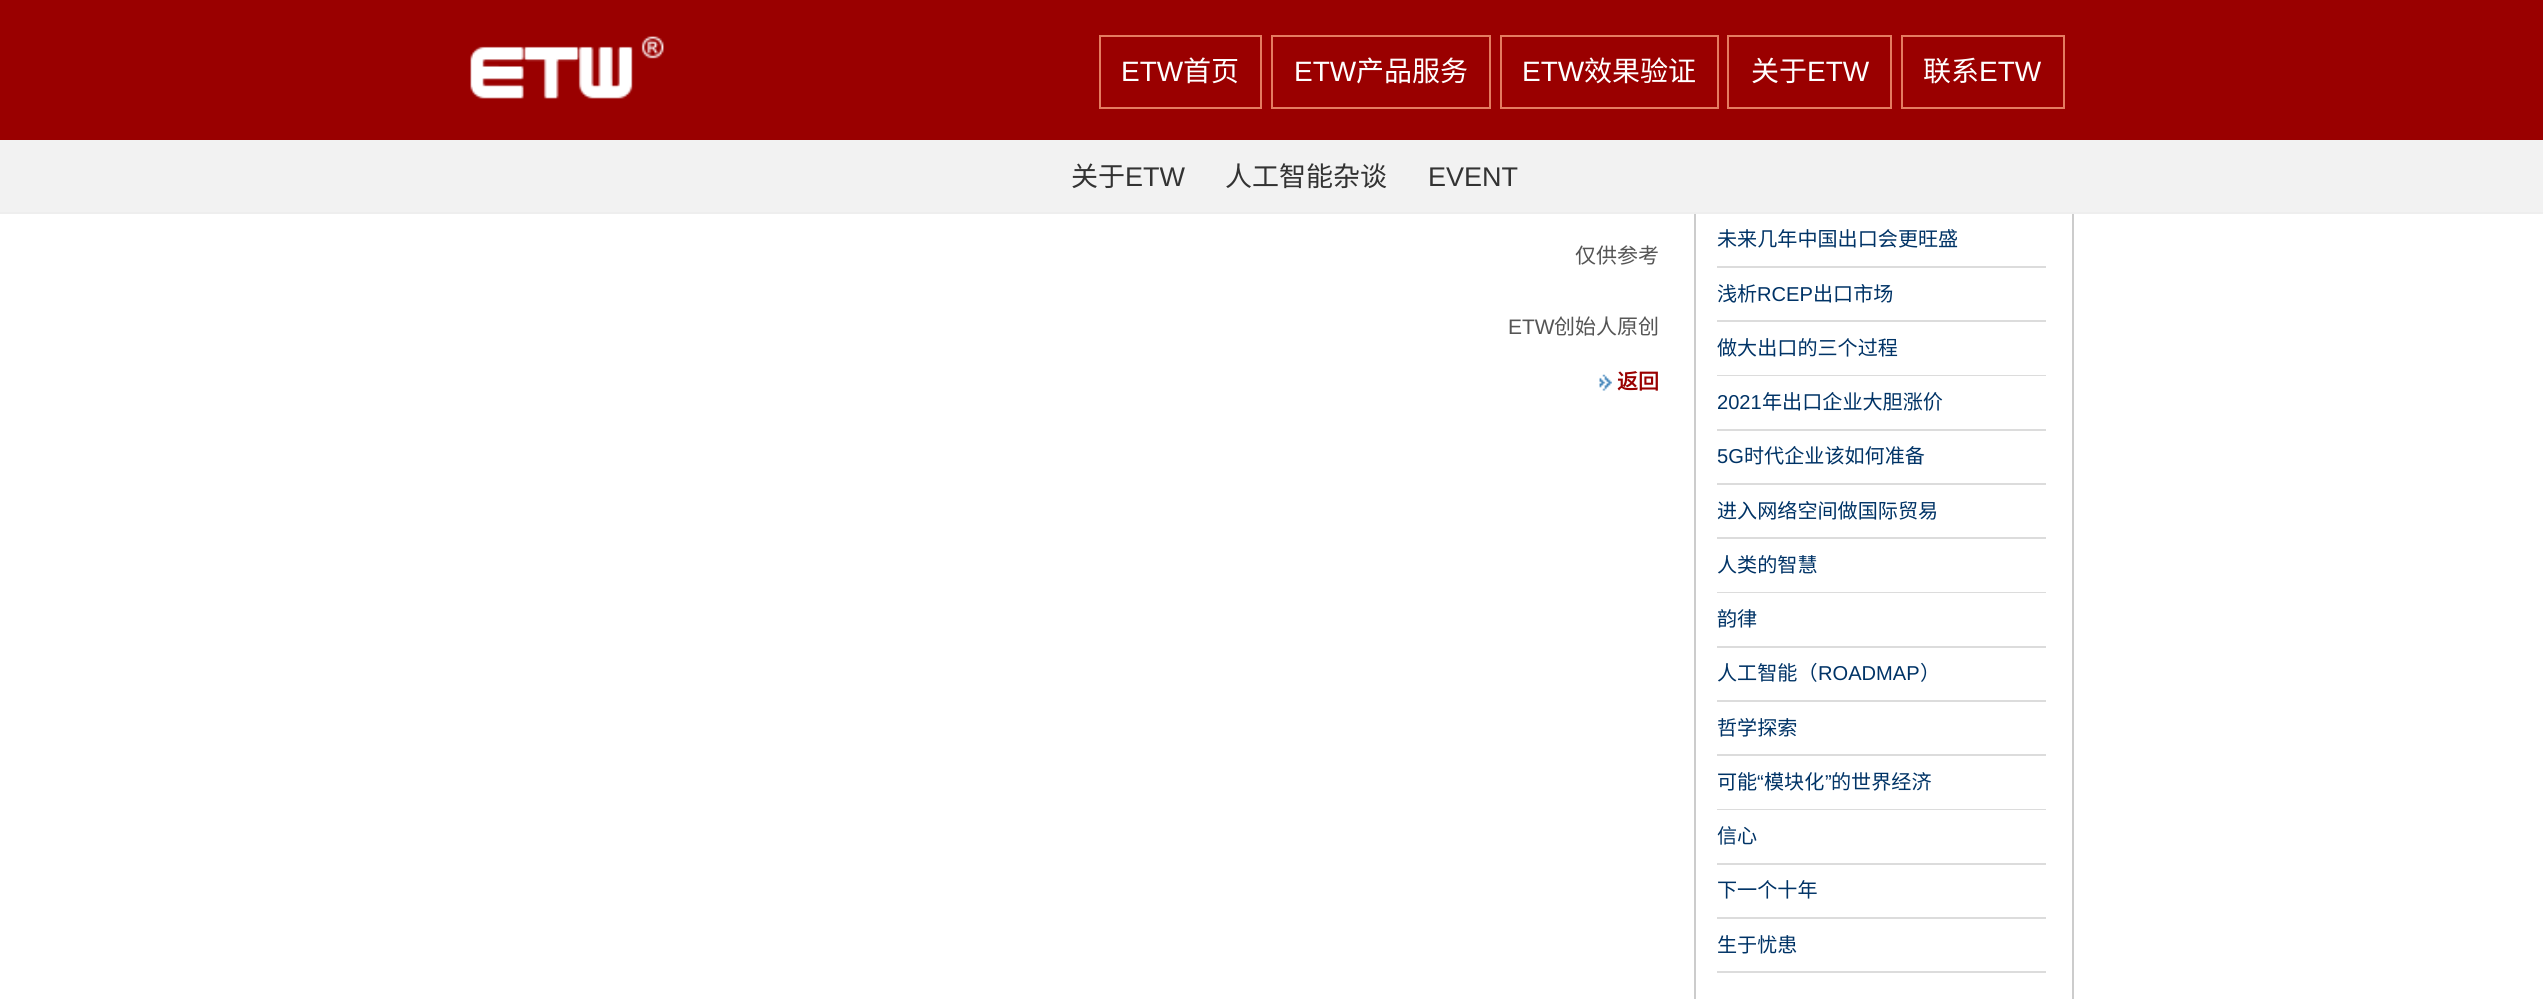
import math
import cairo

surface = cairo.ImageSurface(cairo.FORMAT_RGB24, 2543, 999)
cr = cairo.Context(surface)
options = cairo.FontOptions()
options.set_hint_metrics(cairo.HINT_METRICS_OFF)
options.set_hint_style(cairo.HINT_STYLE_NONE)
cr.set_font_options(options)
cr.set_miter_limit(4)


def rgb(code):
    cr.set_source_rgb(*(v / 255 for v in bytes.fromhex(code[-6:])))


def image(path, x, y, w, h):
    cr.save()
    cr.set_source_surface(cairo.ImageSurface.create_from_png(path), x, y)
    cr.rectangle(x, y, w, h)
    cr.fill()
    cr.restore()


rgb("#ffffff")
cr.paint()
cr.rectangle(1695, -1, 378, 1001)
rgb("#cccccc")
cr.stroke()
rgb("#9a0000")
cr.rectangle(0, 0, 2543, 140)
cr.fill()
image("img/1.png", 470, 36, 194, 63)
cr.rectangle(1100, 36, 161, 72)
rgb("#e47c61")
cr.stroke()
cr.rectangle(1272, 36, 218, 72)
cr.stroke()
cr.rectangle(1501, 36, 217, 72)
cr.stroke()
cr.rectangle(1728, 36, 163, 72)
cr.stroke()
cr.rectangle(1902, 36, 162, 72)
cr.stroke()
rgb("#f2f2f2")
cr.rectangle(0, 140, 2543, 72)
cr.fill()
rgb("#eeeeee")
cr.rectangle(0, 212, 2543, 2)
cr.fill()
image("img/2.png", 1599, 374, 13, 17)
for x, y, w, h, color in [
    (1717, 266, 329, 2, "#dcdcdc"),
    (1717, 320, 329, 2, "#dcdcdc"),
    (1717, 375, 329, 1, "#dcdcdc"),
    (1717, 429, 329, 2, "#dcdcdc"),
    (1717, 483, 329, 2, "#dcdcdc"),
    (1717, 537, 329, 2, "#dcdcdc"),
    (1717, 592, 329, 1, "#dcdcdc"),
    (1717, 646, 329, 2, "#dcdcdc"),
    (1717, 700, 329, 2, "#dcdcdc"),
    (1717, 754, 329, 2, "#dcdcdc"),
    (1717, 809, 329, 1, "#dcdcdc"),
    (1717, 863, 329, 2, "#dcdcdc"),
    (1717, 917, 329, 2, "#dcdcdc"),
    (1717, 971, 329, 2, "#dcdcdc"),
]:
    rgb(color)
    cr.rectangle(x, y, w, h)
    cr.fill()
cr.select_font_face("Liberation Sans")
cr.set_font_size(28)
rgb("#ffffff")
cr.move_to(1121, 81)
cr.show_text("ETW")
cr.select_font_face("Noto Sans CJK SC")
cr.move_to(1183, 81)
cr.show_text("首页")
cr.select_font_face("Liberation Sans")
cr.move_to(1294, 81)
cr.show_text("ETW")
cr.select_font_face("Noto Sans CJK SC")
cr.move_to(1356, 81)
cr.show_text("产品服务")
cr.select_font_face("Liberation Sans")
cr.move_to(1522, 81)
cr.show_text("ETW")
cr.select_font_face("Noto Sans CJK SC")
cr.move_to(1584, 81)
cr.show_text("效果验证")
cr.move_to(1751, 81)
cr.show_text("关于")
cr.select_font_face("Liberation Sans")
cr.move_to(1807, 81)
cr.show_text("ETW")
cr.select_font_face("Noto Sans CJK SC")
cr.move_to(1923, 81)
cr.show_text("联系")
cr.select_font_face("Liberation Sans")
cr.move_to(1979, 81)
cr.show_text("ETW")
cr.select_font_face("Noto Sans CJK SC")
cr.set_font_size(27)
rgb("#333333")
cr.move_to(1071, 186)
cr.show_text("关于")
cr.select_font_face("Liberation Sans")
cr.move_to(1125, 186)
cr.show_text("ETW")
cr.select_font_face("Noto Sans CJK SC")
cr.move_to(1225, 186)
cr.show_text("人工智能杂谈")
cr.select_font_face("Liberation Sans")
cr.move_to(1428, 186)
cr.show_text("EVENT")
cr.select_font_face("Noto Sans CJK SC")
cr.set_font_size(21)
rgb("#555555")
cr.move_to(1575, 263)
cr.show_text("仅供参考")
cr.select_font_face("Liberation Sans")
cr.move_to(1508, 334)
cr.show_text("ETW")
cr.select_font_face("Noto Sans CJK SC")
cr.move_to(1554, 334)
cr.show_text("创始人原创")
cr.select_font_face("Noto Sans CJK SC", cairo.FONT_SLANT_NORMAL, cairo.FONT_WEIGHT_BOLD)
rgb("#9a0000")
cr.move_to(1617, 389)
cr.show_text("返回")
cr.select_font_face("Noto Sans CJK SC")
cr.set_font_size(20.1)
rgb("#003366")
cr.move_to(1717, 246)
cr.show_text("未来几年中国出口会更旺盛")
cr.move_to(1717, 301)
cr.show_text("浅析")
cr.select_font_face("Liberation Sans")
cr.move_to(1757, 301)
cr.show_text("RCEP")
cr.select_font_face("Noto Sans CJK SC")
cr.move_to(1813, 301)
cr.show_text("出口市场")
cr.move_to(1717, 355)
cr.show_text("做大出口的三个过程")
cr.select_font_face("Liberation Sans")
cr.move_to(1717, 409)
cr.show_text("2021")
cr.select_font_face("Noto Sans CJK SC")
cr.move_to(1762, 409)
cr.show_text("年出口企业大胆涨价")
cr.select_font_face("Liberation Sans")
cr.move_to(1717, 463)
cr.show_text("5G")
cr.select_font_face("Noto Sans CJK SC")
for x, y, s in [
    (1744, 463, "时代企业该如何准备"),
    (1717, 518, "进入网络空间做国际贸易"),
    (1717, 572, "人类的智慧"),
    (1717, 626, "韵律"),
    (1717, 680, "人工智能（"),
]:
    cr.move_to(x, y)
    cr.show_text(s)
cr.select_font_face("Liberation Sans")
cr.move_to(1818, 680)
cr.show_text("ROADMAP")
cr.select_font_face("Noto Sans CJK SC")
for x, y, s in [
    (1920, 680, "）"),
    (1717, 735, "哲学探索"),
    (1717, 789, "可能"),
]:
    cr.move_to(x, y)
    cr.show_text(s)
cr.select_font_face("Liberation Sans")
cr.move_to(1757, 789)
cr.show_text("“")
cr.select_font_face("Noto Sans CJK SC")
cr.move_to(1764, 789)
cr.show_text("模块化")
cr.select_font_face("Liberation Sans")
cr.move_to(1825, 789)
cr.show_text("”")
cr.select_font_face("Noto Sans CJK SC")
for x, y, s in [
    (1831, 789, "的世界经济"),
    (1717, 843, "信心"),
    (1717, 897, "下一个十年"),
    (1717, 952, "生于忧患"),
]:
    cr.move_to(x, y)
    cr.show_text(s)
surface.write_to_png("page.png")
